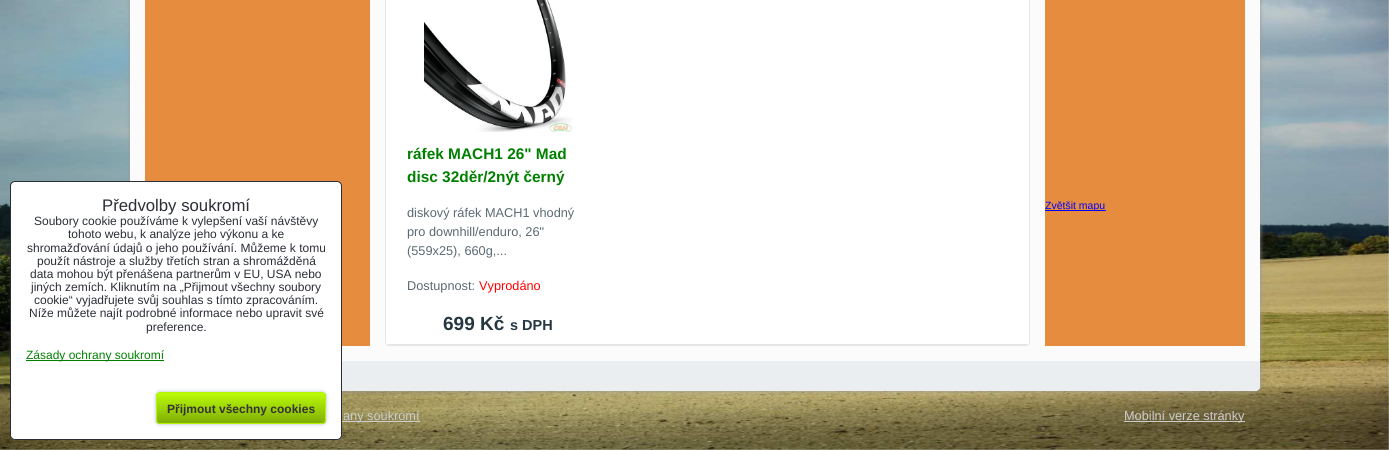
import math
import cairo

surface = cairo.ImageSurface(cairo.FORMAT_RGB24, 1389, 450)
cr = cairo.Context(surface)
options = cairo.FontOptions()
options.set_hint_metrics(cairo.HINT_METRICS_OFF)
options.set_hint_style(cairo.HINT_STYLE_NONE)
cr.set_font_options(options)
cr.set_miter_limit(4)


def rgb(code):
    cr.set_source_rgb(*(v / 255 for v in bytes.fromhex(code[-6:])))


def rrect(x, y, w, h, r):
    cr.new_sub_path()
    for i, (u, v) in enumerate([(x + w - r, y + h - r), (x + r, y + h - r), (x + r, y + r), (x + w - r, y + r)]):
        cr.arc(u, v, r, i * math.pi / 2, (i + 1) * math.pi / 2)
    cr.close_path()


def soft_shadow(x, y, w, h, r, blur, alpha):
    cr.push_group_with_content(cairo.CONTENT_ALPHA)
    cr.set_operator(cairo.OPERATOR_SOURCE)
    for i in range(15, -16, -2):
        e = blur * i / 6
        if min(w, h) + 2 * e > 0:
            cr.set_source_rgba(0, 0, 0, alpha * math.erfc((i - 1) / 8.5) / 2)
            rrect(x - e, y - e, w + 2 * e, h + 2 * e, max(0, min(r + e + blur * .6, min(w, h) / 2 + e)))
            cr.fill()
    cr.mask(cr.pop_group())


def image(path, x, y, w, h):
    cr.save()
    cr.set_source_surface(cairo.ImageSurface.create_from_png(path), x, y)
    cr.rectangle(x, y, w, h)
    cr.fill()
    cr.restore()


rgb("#ffffff")
cr.paint()
image("img/1.png", 0, 0, 1389, 450)
rgb("#999999")
soft_shadow(130, -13, 1130, 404, 5, 2.5, 1)
rgb("#fbfbfb")
rrect(130, -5, 1130, 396, 5)
cr.fill()
rgb("#e68c3e")
cr.rectangle(145, 0, 225, 346)
cr.fill()
rgb("#eaeef0")
cr.new_path()
cr.move_to(130, 361)
cr.line_to(1260, 361)
cr.line_to(1260, 386)
cr.curve_to(1260, 389, 1258, 391, 1255, 391)
cr.line_to(135, 391)
cr.curve_to(132, 391, 130, 389, 130, 386)
cr.close_path()
cr.fill()
rgb("#ffffff")
rrect(10.5, 181.5, 331, 258, 4.5)
cr.fill_preserve()
rgb("#2b2e38")
cr.set_line_width(1)
cr.stroke()
rgb("#008000")
cr.rectangle(26, 360, 138, 1)
cr.fill()
rgb("#b6bfc3")
soft_shadow(156, 392, 170, 32, 4, 2, 1)
image("img/2.png", 156, 393, 170, 31)
rrect(156.5, 392.5, 169, 31, 3.5)
rgb("#b4f308")
cr.stroke()
rgb("#ffffff")
rrect(385.5, -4.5, 644, 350, 3.5)
cr.fill_preserve()
rgb("#e3e5e6")
cr.stroke()
cr.rectangle(388, 344, 639, 1)
cr.fill()
image("img/3.png", 424, 0, 148, 132)
for x, y, w, h, color in [
    (1045, 0, 200, 346, "#e68c3e"),
    (1045, 210, 61, 1, "#0000ff"),
    (342, 421, 78, 1, "#cccccc"),
    (1124, 421, 121, 1, "#cccccc"),
]:
    rgb(color)
    cr.rectangle(x, y, w, h)
    cr.fill()
cr.select_font_face("Liberation Sans")
cr.set_font_size(16.75)
rgb("#2b2e38")
cr.move_to(102, 211)
cr.show_text("Předvolby soukromí")
cr.set_font_size(12)
for x, y, s in [
    (34, 225, "Soubory cookie používáme k vylepšení vaší návštěvy"),
    (68, 238, "tohoto webu, k analýze jeho výkonu a ke"),
    (27, 252, "shromažďování údajů o jeho používání. Můžeme k tomu"),
    (37, 265, "použít nástroje a služby třetích stran a shromážděná"),
    (30, 278, "data mohou být přenášena partnerům v EU, USA nebo"),
    (31, 291, "jiných zemích. Kliknutím na „Přijmout všechny soubory"),
    (34, 304, "cookie“ vyjadřujete svůj souhlas s tímto zpracováním."),
    (29, 317, "Níže můžete najít podrobné informace nebo upravit své"),
    (146, 331, "preference."),
]:
    cr.move_to(x, y)
    cr.show_text(s)
rgb("#008000")
cr.move_to(26, 359)
cr.show_text("Zásady ochrany soukromí")
cr.select_font_face("Liberation Sans", cairo.FONT_SLANT_NORMAL, cairo.FONT_WEIGHT_BOLD)
rgb("#333333")
cr.move_to(167, 413)
cr.show_text("Přijmout všechny cookies")
cr.set_font_size(15.4)
rgb("#008000")
cr.move_to(407, 159)
cr.show_text("ráfek MACH1 26\" Mad")
cr.move_to(407, 182)
cr.show_text("disc 32děr/2nýt černý")
cr.select_font_face("Liberation Sans")
cr.set_font_size(12.75)
rgb("#5a6a72")
for x, y, s in [
    (407, 217, "diskový ráfek MACH1 vhodný"),
    (407, 236, "pro downhill/enduro, 26\""),
    (407, 255, "(559x25), 660g,..."),
    (407, 290, "Dostupnost:"),
]:
    cr.move_to(x, y)
    cr.show_text(s)
rgb("#ff0000")
cr.move_to(479, 290)
cr.show_text("Vyprodáno")
cr.select_font_face("Liberation Sans", cairo.FONT_SLANT_NORMAL, cairo.FONT_WEIGHT_BOLD)
cr.set_font_size(19)
rgb("#253741")
cr.move_to(443, 330)
cr.show_text("699 Kč")
cr.set_font_size(14.5)
cr.move_to(510, 330)
cr.show_text("s DPH")
cr.select_font_face("Liberation Sans")
cr.set_font_size(10.5)
rgb("#0000ff")
cr.move_to(1045, 209)
cr.show_text("Zvětšit mapu")
cr.set_font_size(12.75)
rgb("#cccccc")
cr.move_to(343, 420)
cr.show_text("any soukromí")
cr.move_to(1124, 420)
cr.show_text("Mobilní verze stránky")
surface.write_to_png("page.png")
